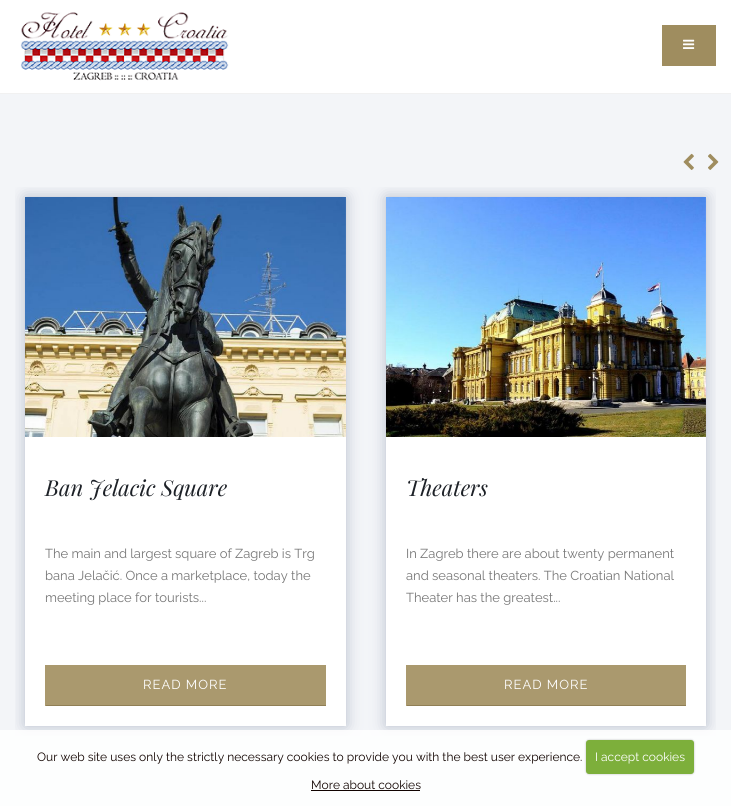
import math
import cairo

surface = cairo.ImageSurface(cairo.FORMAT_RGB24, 731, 806)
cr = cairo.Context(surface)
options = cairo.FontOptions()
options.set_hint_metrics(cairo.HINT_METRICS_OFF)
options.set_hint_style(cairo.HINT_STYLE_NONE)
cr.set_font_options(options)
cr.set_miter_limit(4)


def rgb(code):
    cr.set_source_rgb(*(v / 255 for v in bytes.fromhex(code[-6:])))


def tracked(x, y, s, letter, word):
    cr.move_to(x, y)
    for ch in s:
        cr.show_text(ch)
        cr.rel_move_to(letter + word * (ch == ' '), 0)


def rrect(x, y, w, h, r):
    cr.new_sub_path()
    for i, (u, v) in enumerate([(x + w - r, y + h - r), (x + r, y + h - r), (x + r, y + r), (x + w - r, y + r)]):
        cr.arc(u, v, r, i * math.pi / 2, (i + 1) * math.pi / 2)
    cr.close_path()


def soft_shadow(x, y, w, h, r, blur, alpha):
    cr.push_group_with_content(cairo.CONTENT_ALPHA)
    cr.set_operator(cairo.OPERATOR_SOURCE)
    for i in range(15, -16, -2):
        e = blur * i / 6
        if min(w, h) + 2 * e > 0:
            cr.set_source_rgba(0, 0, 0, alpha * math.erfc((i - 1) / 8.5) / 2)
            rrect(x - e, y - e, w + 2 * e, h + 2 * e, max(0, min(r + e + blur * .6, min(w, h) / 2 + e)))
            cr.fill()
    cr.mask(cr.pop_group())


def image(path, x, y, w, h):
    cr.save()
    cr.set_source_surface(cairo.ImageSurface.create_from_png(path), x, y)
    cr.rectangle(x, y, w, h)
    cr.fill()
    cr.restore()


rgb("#f3f5f8")
cr.paint()
rgb("#ffffff")
cr.rectangle(0, 0, 731, 93)
cr.fill()
image("img/1.png", 20, 12, 209, 69)
rgb("#9f8d5f")
cr.rectangle(662, 25, 54, 41)
cr.fill()
image("img/2.png", 683, 39, 12, 10)
rgb("#f1f1f1")
cr.rectangle(0, 93, 731, 1)
cr.fill()
image("img/3.png", 683, 153, 11, 17)
image("img/4.png", 708, 153, 11, 17)
cr.save()
cr.rectangle(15, 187, 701, 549)
cr.clip()
rgb("#a8b0c1")
soft_shadow(25, 197, 321, 529, 0, 7.5, 0.8)
cr.restore()
rgb("#ffffff")
cr.rectangle(25, 197, 321, 529)
cr.fill()
image("img/5.png", 25, 197, 321, 240)
for x, y, w, h, color in [
    (46, 665, 280, 40, "#aa996e"),
    (45, 705, 281, 1, "#907f55"),
    (45, 665, 1, 41, "#aa996e"),
]:
    rgb(color)
    cr.rectangle(x, y, w, h)
    cr.fill()
cr.save()
cr.rectangle(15, 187, 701, 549)
cr.clip()
rgb("#a8b0c1")
soft_shadow(386, 197, 320, 529, 0, 7.5, 0.8)
cr.restore()
rgb("#ffffff")
cr.rectangle(386, 197, 320, 529)
cr.fill()
image("img/6.png", 386, 197, 320, 240)
rgb("#aa996e")
cr.rectangle(407, 665, 279, 40)
cr.fill()
rgb("#907f55")
cr.rectangle(406, 705, 280, 1)
cr.fill()
rgb("#aa996e")
cr.rectangle(406, 665, 1, 41)
cr.fill()
cr.set_source_rgba(1, 1, 1, 0.85)
cr.rectangle(0, 730, 731, 76)
cr.fill()
rgb("#000000")
soft_shadow(586, 740, 108, 34, 3, 1, 0.25)
rgb("#7daf3b")
rrect(586, 740, 108, 34, 3)
cr.fill()
rgb("#110300")
cr.rectangle(311, 790, 109, 1)
cr.fill()
cr.select_font_face("Playfair Display", cairo.FONT_SLANT_ITALIC)
cr.set_font_size(22)
rgb("#1d2127")
cr.move_to(45, 496)
cr.show_text("Ban Jelacic Square")
cr.select_font_face("Raleway Thin")
cr.set_font_size(13)
rgb("#777777")
for x, y, s in [
    (45, 558, "The main and largest square of Zagreb is Trg"),
    (45, 580, "bana Jelačić. Once a marketplace, today the"),
    (45, 602, "meeting place for tourists..."),
]:
    cr.move_to(x, y)
    cr.show_text(s)
rgb("#ffffff")
tracked(143, 689, "READ MORE", 1, 0)
cr.select_font_face("Playfair Display", cairo.FONT_SLANT_ITALIC)
cr.set_font_size(22)
rgb("#1d2127")
cr.move_to(406, 496)
cr.show_text("Theaters")
cr.select_font_face("Raleway Thin")
cr.set_font_size(13)
rgb("#777777")
for x, y, s in [
    (406, 558, "In Zagreb there are about twenty permanent"),
    (406, 580, "and seasonal theaters. The Croatian National"),
    (406, 602, "Theater has the greatest..."),
]:
    cr.move_to(x, y)
    cr.show_text(s)
rgb("#ffffff")
tracked(504, 689, "READ MORE", 1, 0)
cr.set_font_size(12)
rgb("#110300")
cr.move_to(37, 761)
cr.show_text("Our web site uses only the strictly necessary cookies to provide you with the best user experience.")
rgb("#ffffff")
cr.move_to(595, 761)
cr.show_text("I accept cookies")
rgb("#110300")
cr.move_to(311, 789)
cr.show_text("More about cookies")
surface.write_to_png("page.png")
